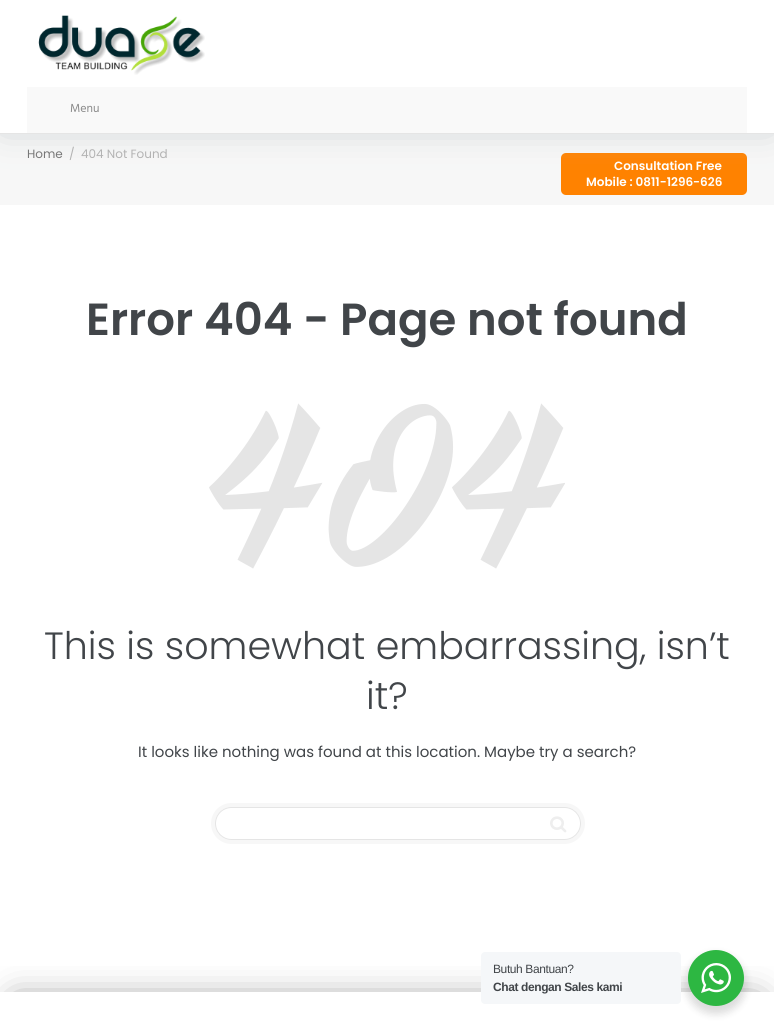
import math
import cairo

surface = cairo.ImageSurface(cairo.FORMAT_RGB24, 774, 1036)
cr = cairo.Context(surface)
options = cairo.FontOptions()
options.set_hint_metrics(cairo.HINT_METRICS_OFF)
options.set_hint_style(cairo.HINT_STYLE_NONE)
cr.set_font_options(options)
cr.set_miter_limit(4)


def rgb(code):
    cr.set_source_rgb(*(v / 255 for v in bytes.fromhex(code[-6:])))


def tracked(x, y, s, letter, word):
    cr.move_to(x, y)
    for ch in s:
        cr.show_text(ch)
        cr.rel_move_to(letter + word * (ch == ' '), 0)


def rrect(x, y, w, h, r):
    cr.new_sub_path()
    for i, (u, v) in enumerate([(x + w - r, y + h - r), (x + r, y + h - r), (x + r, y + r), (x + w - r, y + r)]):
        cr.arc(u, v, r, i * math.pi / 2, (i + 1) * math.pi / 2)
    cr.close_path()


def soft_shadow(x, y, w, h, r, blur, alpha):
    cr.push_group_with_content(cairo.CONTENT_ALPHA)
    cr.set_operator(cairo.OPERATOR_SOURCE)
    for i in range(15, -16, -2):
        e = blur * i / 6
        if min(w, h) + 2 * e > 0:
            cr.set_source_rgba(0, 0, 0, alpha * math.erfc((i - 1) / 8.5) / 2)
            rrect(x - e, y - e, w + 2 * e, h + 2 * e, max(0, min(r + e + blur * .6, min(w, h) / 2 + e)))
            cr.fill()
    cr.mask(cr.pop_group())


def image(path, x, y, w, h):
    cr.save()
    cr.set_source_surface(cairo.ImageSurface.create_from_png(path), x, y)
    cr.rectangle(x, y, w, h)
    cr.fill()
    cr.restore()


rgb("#ffffff")
cr.paint()
rgb("#f7f7f7")
cr.rectangle(0, 134, 774, 71)
cr.fill()
rgb("#ff8200")
rrect(561, 153, 186, 42, 5)
cr.fill()
rgb("#bdc3c7")
soft_shadow(4, -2, 766, 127, 0, 18, 1)
rgb("#ffffff")
cr.rectangle(0, 0, 774, 133)
cr.fill()
rgb("#e5e5e5")
cr.rectangle(0, 133, 774, 1)
cr.fill()
image("img/1.png", 38, 15, 167, 60)
rgb("#f9f9f9")
cr.rectangle(27, 87, 720, 46)
cr.fill()
image("img/2.png", 209, 403, 356, 166)
rrect(213, 805, 370, 37, 18.5)
rgb("#f7f7f7")
cr.set_line_width(4)
cr.stroke()
rrect(215.5, 807.5, 365, 32, 16)
rgb("#e5e5e5")
cr.set_line_width(1)
cr.stroke()
image("img/3.png", 550, 816, 17, 17)
cr.save()
cr.rectangle(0, 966, 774, 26)
cr.clip()
rgb("#777777")
soft_shadow(16, 1003, 742, 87, 0, 18, 1)
cr.restore()
rgb("#000000")
soft_shadow(686, 954, 60, 60, 30, 4, 0.14)
rgb("#f5f7f9")
rrect(481, 952, 200, 52, 4)
cr.fill()
rgb("#2db742")
cr.arc(716, 978, 28, 0, 2 * math.pi)
cr.fill()
image("img/4.png", 701, 963, 30, 30)
cr.select_font_face("Hind")
cr.set_font_size(12)
rgb("#888888")
cr.move_to(70, 112)
cr.show_text("Menu")
cr.select_font_face("Poppins")
rgb("#777777")
cr.move_to(27, 158)
cr.show_text("Home")
rgb("#b3b3b3")
cr.move_to(69, 158)
cr.show_text("/")
cr.move_to(81, 158)
cr.show_text("404 Not Found")
cr.select_font_face("Poppins SemiBold")
rgb("#ffffff")
cr.move_to(614, 170)
cr.show_text("Consultation Free")
cr.move_to(586, 186)
cr.show_text("Mobile : 0811-1296-626")
cr.set_font_size(45)
rgb("#414549")
cr.move_to(86, 335)
cr.show_text("Error 404 - Page not found")
cr.select_font_face("Poppins Light")
cr.set_font_size(38)
cr.move_to(44, 659)
cr.show_text("This is somewhat embarrassing, isn’t")
cr.move_to(366, 709)
cr.show_text("it?")
cr.select_font_face("Poppins")
cr.set_font_size(15)
cr.move_to(138, 757)
cr.show_text("It looks like nothing was found at this location. Maybe try a search?")
cr.select_font_face("Liberation Sans")
cr.set_font_size(12)
tracked(493, 973, "Butuh Bantuan?", -0.4, 0)
cr.select_font_face("Liberation Sans", cairo.FONT_SLANT_NORMAL, cairo.FONT_WEIGHT_BOLD)
tracked(493, 991, "Chat dengan Sales kami", -0.4, 0)
surface.write_to_png("page.png")
